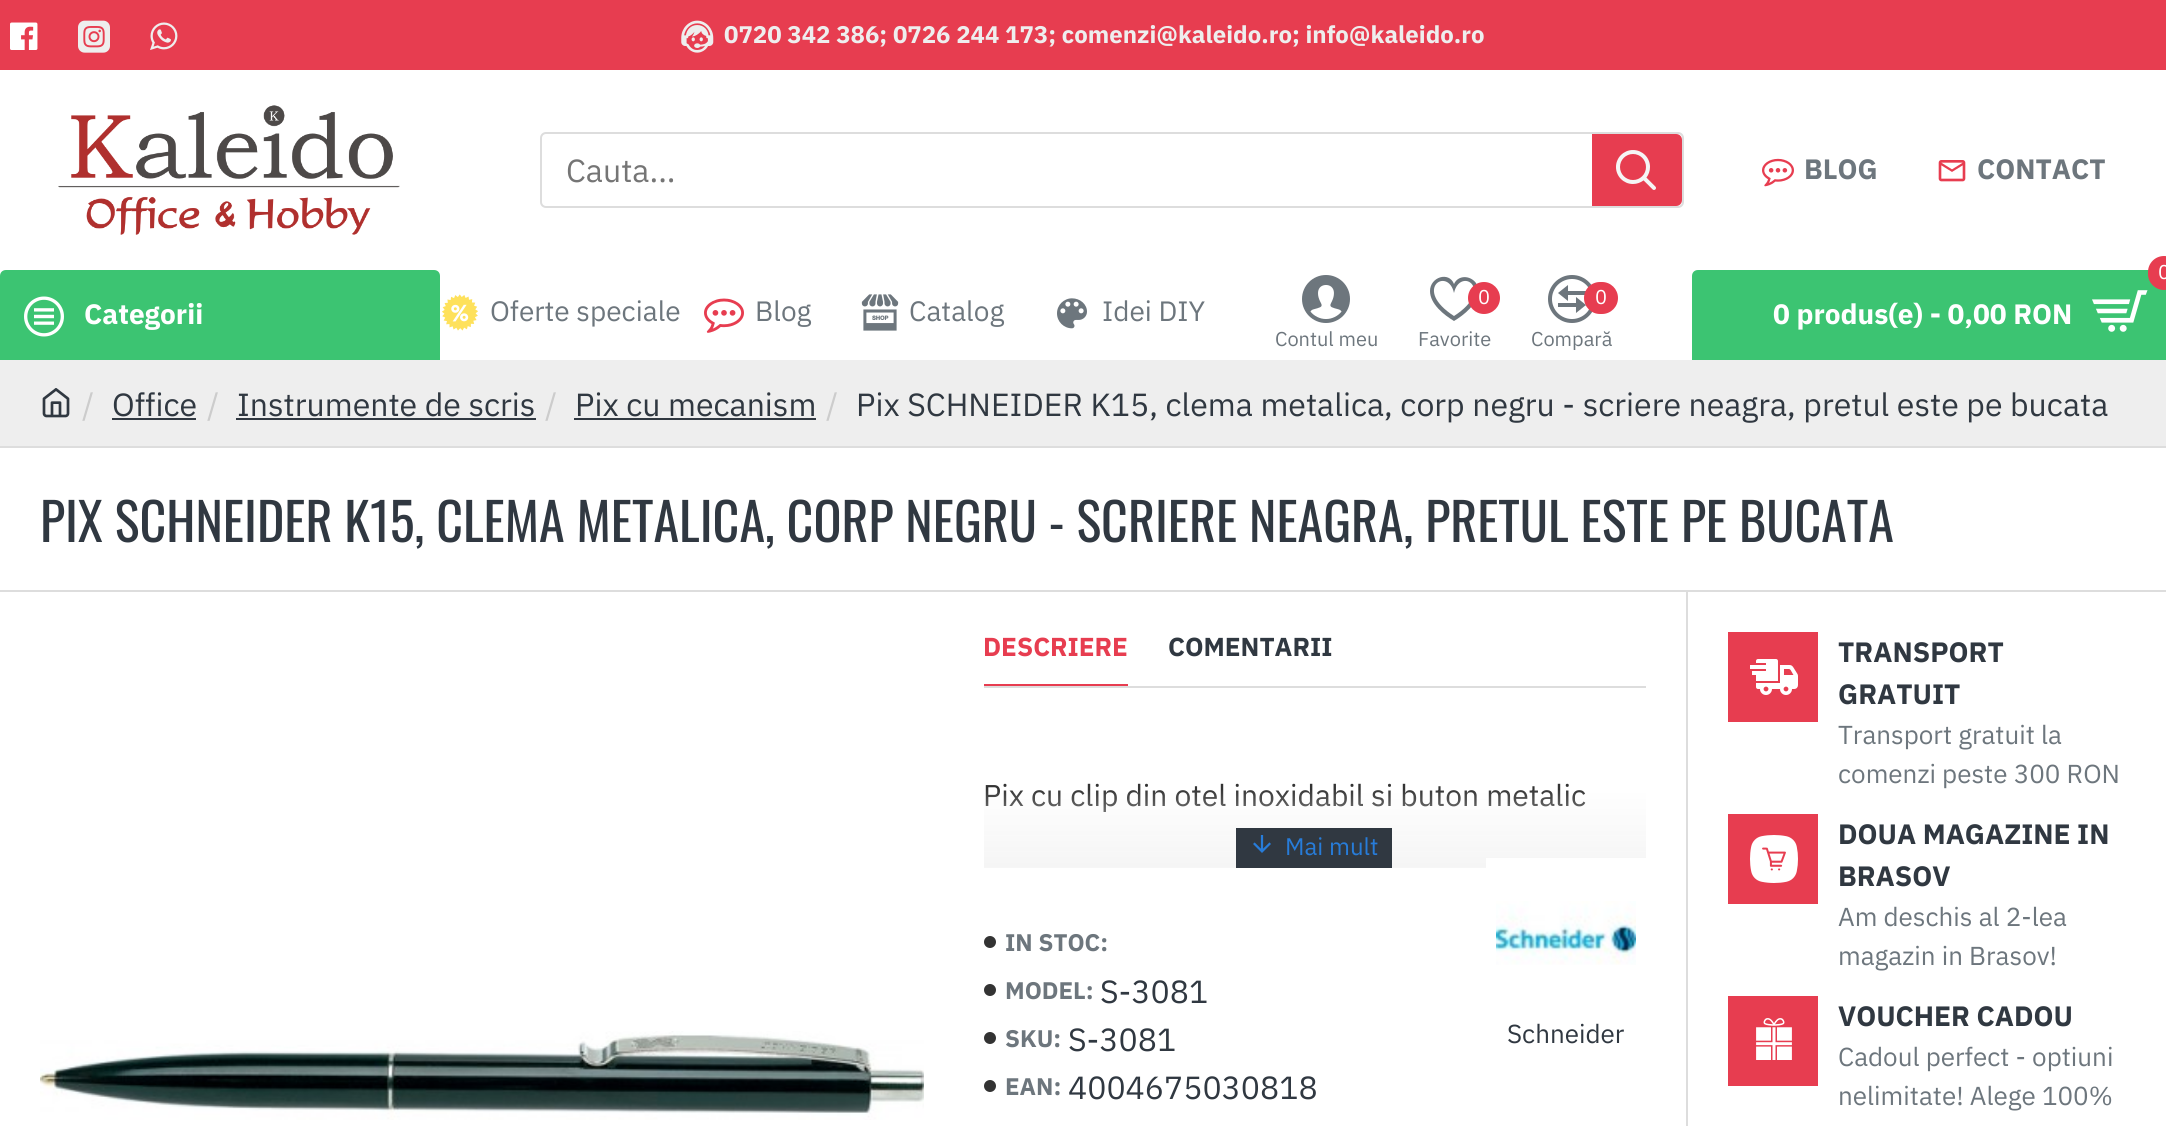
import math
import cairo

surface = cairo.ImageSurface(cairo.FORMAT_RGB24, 2166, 1126)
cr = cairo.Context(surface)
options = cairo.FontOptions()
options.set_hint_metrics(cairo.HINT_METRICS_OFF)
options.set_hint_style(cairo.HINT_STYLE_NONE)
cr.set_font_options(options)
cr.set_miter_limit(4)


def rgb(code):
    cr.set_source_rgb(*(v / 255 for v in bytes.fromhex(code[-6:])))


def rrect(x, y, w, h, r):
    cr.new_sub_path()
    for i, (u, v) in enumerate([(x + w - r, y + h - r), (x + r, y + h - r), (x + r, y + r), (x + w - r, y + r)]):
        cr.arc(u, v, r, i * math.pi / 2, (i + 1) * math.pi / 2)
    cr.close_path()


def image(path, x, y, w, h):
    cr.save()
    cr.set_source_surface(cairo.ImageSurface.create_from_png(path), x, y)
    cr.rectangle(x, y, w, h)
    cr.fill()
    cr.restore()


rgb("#ffffff")
cr.paint()
rgb("#e73d50")
cr.rectangle(0, 0, 2166, 70)
cr.fill()
image("img/1.png", 10, 22, 28, 28)
image("img/2.png", 78, 20, 32, 33)
image("img/3.png", 150, 22, 28, 28)
image("img/4.png", 681, 20, 33, 33)
image("img/5.png", 58, 105, 342, 130)
rrect(541, 133, 1142, 74, 5)
rgb("#dddddd")
cr.stroke()
rgb("#e73d50")
cr.new_path()
cr.move_to(1592, 134)
cr.line_to(1676, 134)
cr.curve_to(1679.5, 134, 1682, 136.5, 1682, 140)
cr.line_to(1682, 200)
cr.curve_to(1682, 203.5, 1679.5, 206, 1676, 206)
cr.line_to(1592, 206)
cr.close_path()
cr.fill()
image("img/6.png", 1616, 150, 40, 40)
image("img/7.png", 1762, 158, 32, 29)
image("img/8.png", 1938, 160, 28, 22)
rgb("#3cc472")
cr.new_path()
cr.move_to(6, 270)
cr.line_to(434, 270)
cr.curve_to(437.5, 270, 440, 272.5, 440, 276)
cr.line_to(440, 360)
cr.line_to(0, 360)
cr.line_to(0, 276)
cr.curve_to(0, 272.5, 2.5, 270, 6, 270)
cr.close_path()
cr.fill()
image("img/9.png", 24, 296, 40, 41)
image("img/10.png", 442, 294, 36, 37)
image("img/11.png", 704, 298, 40, 35)
image("img/12.png", 861, 294, 38, 37)
image("img/13.png", 1057, 298, 30, 31)
image("img/14.png", 1302, 275, 48, 48)
rgb("#6d767d")
cr.new_path()
cr.move_to(1454, 293)
cr.curve_to(1460, 266, 1496, 289, 1454, 316)
cr.curve_to(1412, 289, 1448, 266, 1454, 293)
cr.close_path()
cr.move_to(1430, 291)
cr.curve_to(1430, 304, 1444, 315, 1454, 321)
cr.curve_to(1464, 315, 1478, 304, 1478, 291)
cr.curve_to(1478, 288, 1477, 285, 1476, 283)
cr.curve_to(1470, 275, 1458, 275, 1454, 284)
cr.curve_to(1449, 271, 1430, 277, 1430, 291)
cr.close_path()
cr.fill()
rgb("#e73d50")
cr.arc(1484, 298, 16, 0, 2 * math.pi)
cr.fill()
image("img/15.png", 1548, 275, 45, 48)
rrect(1584, 282, 34, 32, 16)
cr.fill()
rgb("#3cc472")
cr.new_path()
cr.move_to(1698, 270)
cr.line_to(2166, 270)
cr.line_to(2166, 360)
cr.line_to(1692, 360)
cr.line_to(1692, 276)
cr.curve_to(1692, 272.5, 1694.5, 270, 1698, 270)
cr.close_path()
cr.fill()
rgb("#e73d50")
rrect(2148, 256, 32, 34, 16)
cr.fill()
image("img/16.png", 2092, 290, 56, 42)
rgb("#eeeeee")
cr.rectangle(0, 360, 2166, 86)
cr.fill()
rgb("#dddddd")
cr.rectangle(0, 446, 2166, 2)
cr.fill()
image("img/17.png", 42, 388, 28, 30)
for x, y, w, h, color in [
    (112, 418, 84, 2, "#303841"),
    (236, 418, 300, 2, "#303841"),
    (574, 418, 242, 2, "#303841"),
    (0, 590, 2166, 2, "#dddddd"),
]:
    rgb(color)
    cr.rectangle(x, y, w, h)
    cr.fill()
image("img/18.png", 40, 1031, 884, 89)
cr.rectangle(984, 686, 662, 2)
cr.fill()
rgb("#e73d50")
cr.rectangle(984, 684, 144, 2)
cr.fill()
image("img/20.png", 984, 936, 12, 12)
image("img/20.png", 984, 984, 12, 12)
image("img/20.png", 984, 1032, 12, 12)
image("img/20.png", 984, 1080, 12, 12)
image("img/21.png", 1496, 901, 140, 64)
rgb("#dddddd")
cr.rectangle(1686, 592, 2, 534)
cr.fill()
rgb("#e73d50")
cr.rectangle(1728, 632, 90, 90)
cr.fill()
image("img/22.png", 1750, 659, 48, 36)
cr.rectangle(1728, 814, 90, 90)
cr.fill()
image("img/23.png", 1750, 835, 48, 48)
cr.rectangle(1728, 996, 90, 90)
cr.fill()
image("img/24.png", 1756, 1018, 36, 42)
cr.select_font_face("IBM Plex Sans", cairo.FONT_SLANT_NORMAL, cairo.FONT_WEIGHT_BOLD)
cr.set_font_size(24)
rgb("#eeeeee")
cr.move_to(724, 43)
cr.show_text("0720 342 386; 0726 244 173; comenzi@kaleido.ro; info@kaleido.ro")
cr.select_font_face("IBM Plex Sans")
cr.set_font_size(32)
rgb("#757575")
cr.move_to(566, 182)
cr.show_text("Cauta...")
cr.select_font_face("IBM Plex Sans", cairo.FONT_SLANT_NORMAL, cairo.FONT_WEIGHT_BOLD)
cr.set_font_size(28)
rgb("#6d767d")
cr.move_to(1804, 179)
cr.show_text("BLOG")
cr.move_to(1977, 179)
cr.show_text("CONTACT")
rgb("#ffffff")
cr.move_to(84, 324)
cr.show_text("Categorii")
cr.select_font_face("IBM Plex Sans")
rgb("#6d767d")
for x, y, s in [
    (490, 321, "Oferte speciale"),
    (755, 321, "Blog"),
    (909, 321, "Catalog"),
    (1102, 321, "Idei DIY"),
]:
    cr.move_to(x, y)
    cr.show_text(s)
cr.set_font_size(20)
cr.move_to(1275, 346)
cr.show_text("Contul meu")
rgb("#ffffff")
cr.move_to(1478, 304)
cr.show_text("0")
rgb("#6d767d")
cr.move_to(1418, 346)
cr.show_text("Favorite")
rgb("#ffffff")
cr.move_to(1595, 304)
cr.show_text("0")
rgb("#6d767d")
cr.move_to(1531, 346)
cr.show_text("Compară")
rgb("#ffffff")
cr.move_to(2158, 279)
cr.show_text("0")
cr.select_font_face("IBM Plex Sans", cairo.FONT_SLANT_NORMAL, cairo.FONT_WEIGHT_BOLD)
cr.set_font_size(28)
cr.move_to(1773, 324)
cr.show_text("0 produs(e) - 0,00 RON")
cr.select_font_face("IBM Plex Sans")
cr.set_font_size(32)
rgb("#cccccc")
cr.move_to(82, 416)
cr.show_text("/")
rgb("#303841")
cr.move_to(112, 416)
cr.show_text("Office")
rgb("#cccccc")
cr.move_to(207, 416)
cr.show_text("/")
rgb("#303841")
cr.move_to(237, 416)
cr.show_text("Instrumente de scris")
rgb("#cccccc")
cr.move_to(545, 416)
cr.show_text("/")
rgb("#303841")
cr.move_to(575, 416)
cr.show_text("Pix cu mecanism")
rgb("#cccccc")
cr.move_to(826, 416)
cr.show_text("/")
rgb("#303841")
cr.move_to(856, 416)
cr.show_text("Pix SCHNEIDER K15, clema metalica, corp negru - scriere neagra, pretul este pe bucata")
cr.select_font_face("Oswald")
cr.set_font_size(52)
cr.move_to(40, 542)
cr.show_text("PIX SCHNEIDER K15, CLEMA METALICA, CORP NEGRU - SCRIERE NEAGRA, PRETUL ESTE PE BUCATA")
cr.select_font_face("IBM Plex Sans", cairo.FONT_SLANT_NORMAL, cairo.FONT_WEIGHT_BOLD)
cr.set_font_size(26)
rgb("#e73d50")
cr.move_to(983, 656)
cr.show_text("DESCRIERE")
rgb("#303841")
cr.move_to(1168, 656)
cr.show_text("COMENTARII")
cr.select_font_face("IBM Plex Sans")
cr.set_font_size(30)
rgb("#333333")
cr.move_to(983, 806)
cr.show_text("Pix cu clip din otel inoxidabil si buton metalic")
gradient = cairo.LinearGradient(1315, 788, 1315, 868)
gradient.add_color_stop_rgba(0, 0.961, 0.961, 0.961, 0)
gradient.add_color_stop_rgba(1, 0.961, 0.961, 0.961, 1)
cr.set_source(gradient)
cr.rectangle(984, 790, 662, 78)
cr.fill()
rgb("#303841")
cr.rectangle(1236, 828, 156, 40)
cr.fill()
image("img/19.png", 1253, 835, 18, 18)
cr.set_font_size(24)
rgb("#277cd9")
cr.move_to(1285, 855)
cr.show_text("Mai mult")
cr.select_font_face("IBM Plex Sans", cairo.FONT_SLANT_NORMAL, cairo.FONT_WEIGHT_BOLD)
rgb("#6d767d")
cr.move_to(1005, 951)
cr.show_text("IN STOC:")
cr.move_to(1005, 999)
cr.show_text("MODEL:")
cr.select_font_face("IBM Plex Sans")
cr.set_font_size(32)
rgb("#303841")
cr.move_to(1100, 1003)
cr.show_text("S-3081")
cr.select_font_face("IBM Plex Sans", cairo.FONT_SLANT_NORMAL, cairo.FONT_WEIGHT_BOLD)
cr.set_font_size(24)
rgb("#6d767d")
cr.move_to(1005, 1047)
cr.show_text("SKU:")
cr.select_font_face("IBM Plex Sans")
cr.set_font_size(32)
rgb("#303841")
cr.move_to(1068, 1051)
cr.show_text("S-3081")
cr.select_font_face("IBM Plex Sans", cairo.FONT_SLANT_NORMAL, cairo.FONT_WEIGHT_BOLD)
cr.set_font_size(24)
rgb("#6d767d")
cr.move_to(1005, 1095)
cr.show_text("EAN:")
cr.select_font_face("IBM Plex Sans")
cr.set_font_size(32)
rgb("#303841")
cr.move_to(1068, 1099)
cr.show_text("4004675030818")
rgb("#ffffff")
cr.rectangle(1486, 858, 160, 10)
cr.fill()
cr.set_font_size(26)
rgb("#303841")
cr.move_to(1507, 1043)
cr.show_text("Schneider")
cr.select_font_face("IBM Plex Sans", cairo.FONT_SLANT_NORMAL, cairo.FONT_WEIGHT_BOLD)
cr.set_font_size(28)
cr.move_to(1838, 662)
cr.show_text("TRANSPORT")
cr.move_to(1838, 704)
cr.show_text("GRATUIT")
cr.select_font_face("IBM Plex Sans")
cr.set_font_size(26)
rgb("#6d767d")
cr.move_to(1838, 744)
cr.show_text("Transport gratuit la")
cr.move_to(1838, 783)
cr.show_text("comenzi peste 300 RON")
cr.select_font_face("IBM Plex Sans", cairo.FONT_SLANT_NORMAL, cairo.FONT_WEIGHT_BOLD)
cr.set_font_size(28)
rgb("#303841")
cr.move_to(1838, 844)
cr.show_text("DOUA MAGAZINE IN")
cr.move_to(1838, 886)
cr.show_text("BRASOV")
cr.select_font_face("IBM Plex Sans")
cr.set_font_size(26)
rgb("#6d767d")
cr.move_to(1838, 926)
cr.show_text("Am deschis al 2-lea")
cr.move_to(1838, 965)
cr.show_text("magazin in Brasov!")
cr.select_font_face("IBM Plex Sans", cairo.FONT_SLANT_NORMAL, cairo.FONT_WEIGHT_BOLD)
cr.set_font_size(28)
rgb("#303841")
cr.move_to(1838, 1026)
cr.show_text("VOUCHER CADOU")
cr.select_font_face("IBM Plex Sans")
cr.set_font_size(26)
rgb("#6d767d")
cr.move_to(1838, 1066)
cr.show_text("Cadoul perfect - optiuni")
cr.move_to(1838, 1105)
cr.show_text("nelimitate! Alege 100%")
surface.write_to_png("page.png")
